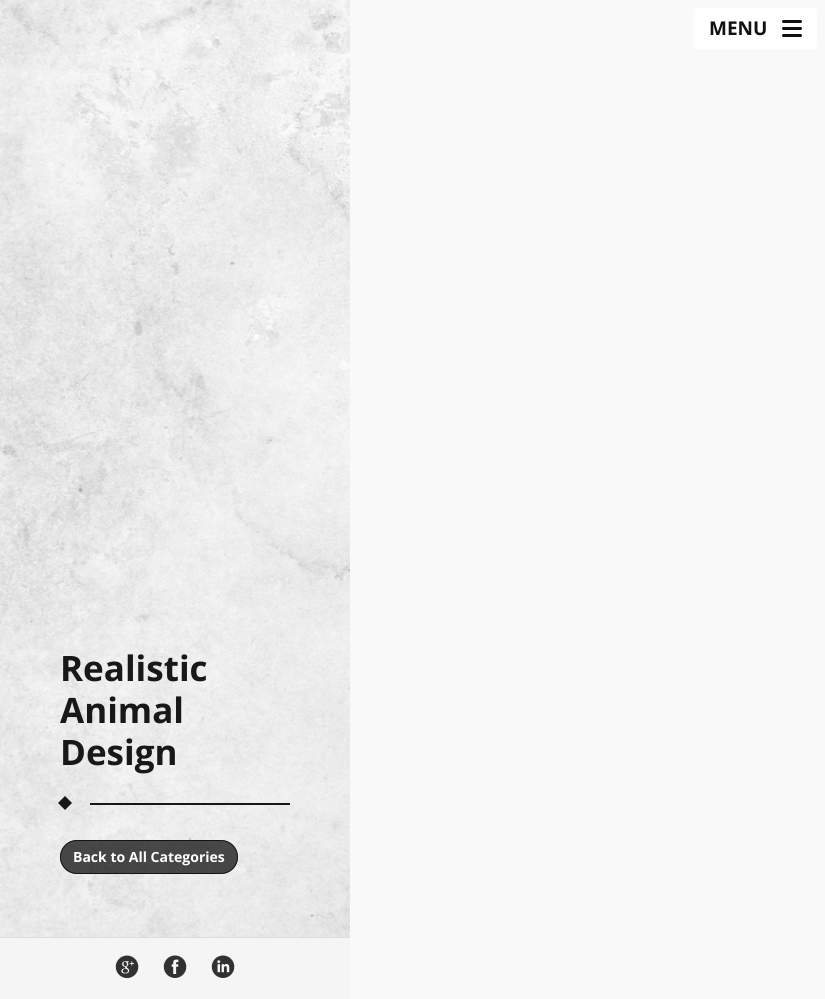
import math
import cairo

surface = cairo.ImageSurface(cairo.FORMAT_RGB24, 825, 999)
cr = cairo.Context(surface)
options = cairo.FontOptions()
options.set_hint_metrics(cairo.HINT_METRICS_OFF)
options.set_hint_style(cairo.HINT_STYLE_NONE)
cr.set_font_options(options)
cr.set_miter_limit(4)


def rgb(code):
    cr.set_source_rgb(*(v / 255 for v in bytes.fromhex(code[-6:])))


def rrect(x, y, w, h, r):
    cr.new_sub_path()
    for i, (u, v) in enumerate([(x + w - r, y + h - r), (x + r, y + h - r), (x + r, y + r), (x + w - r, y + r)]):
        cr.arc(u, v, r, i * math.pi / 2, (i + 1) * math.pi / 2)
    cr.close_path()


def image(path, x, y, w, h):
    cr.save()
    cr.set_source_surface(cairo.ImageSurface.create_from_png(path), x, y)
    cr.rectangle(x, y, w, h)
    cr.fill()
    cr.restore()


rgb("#f9f9f9")
cr.paint()
rgb("#fefefe")
rrect(694, 8, 123, 41, 3)
cr.fill()
rgb("#111111")
rrect(782, 20, 20, 3, 1.5)
cr.fill()
rrect(782, 27, 20, 3, 1.5)
cr.fill()
rrect(782, 34, 20, 3, 1.5)
cr.fill()
image("img/1.png", 0, 0, 350, 937)
cr.set_source_rgba(0, 0, 0, 0.9)
cr.new_path()
cr.move_to(65, 796)
cr.line_to(72, 803)
cr.line_to(65, 810)
cr.line_to(58, 803)
cr.close_path()
cr.fill()
cr.rectangle(90, 803, 200, 2)
cr.fill()
cr.set_source_rgba(0, 0, 0, 0.7)
rrect(60, 840, 178, 34, 17)
cr.fill()
rrect(60.5, 840.5, 177, 33, 16.5)
cr.set_line_width(1)
cr.stroke()
rgb("#f5f5f5")
cr.rectangle(0, 938, 350, 61)
cr.fill()
rgb("#dddddd")
cr.rectangle(0, 937, 350, 1)
cr.fill()
image("img/2.png", 115, 955, 24, 24)
image("img/3.png", 163, 955, 24, 23)
image("img/4.png", 211, 955, 24, 23)
cr.select_font_face("Open Sans", cairo.FONT_SLANT_NORMAL, cairo.FONT_WEIGHT_BOLD)
cr.set_font_size(19)
rgb("#111111")
cr.move_to(709, 35)
cr.show_text("MENU")
cr.set_font_size(35)
rgb("#181818")
for x, y, s in [
    (60, 681, "Realistic"),
    (60, 723, "Animal"),
    (60, 765, "Design"),
]:
    cr.move_to(x, y)
    cr.show_text(s)
cr.set_font_size(14)
rgb("#ffffff")
cr.move_to(73, 862)
cr.show_text("Back to All Categories")
surface.write_to_png("page.png")
